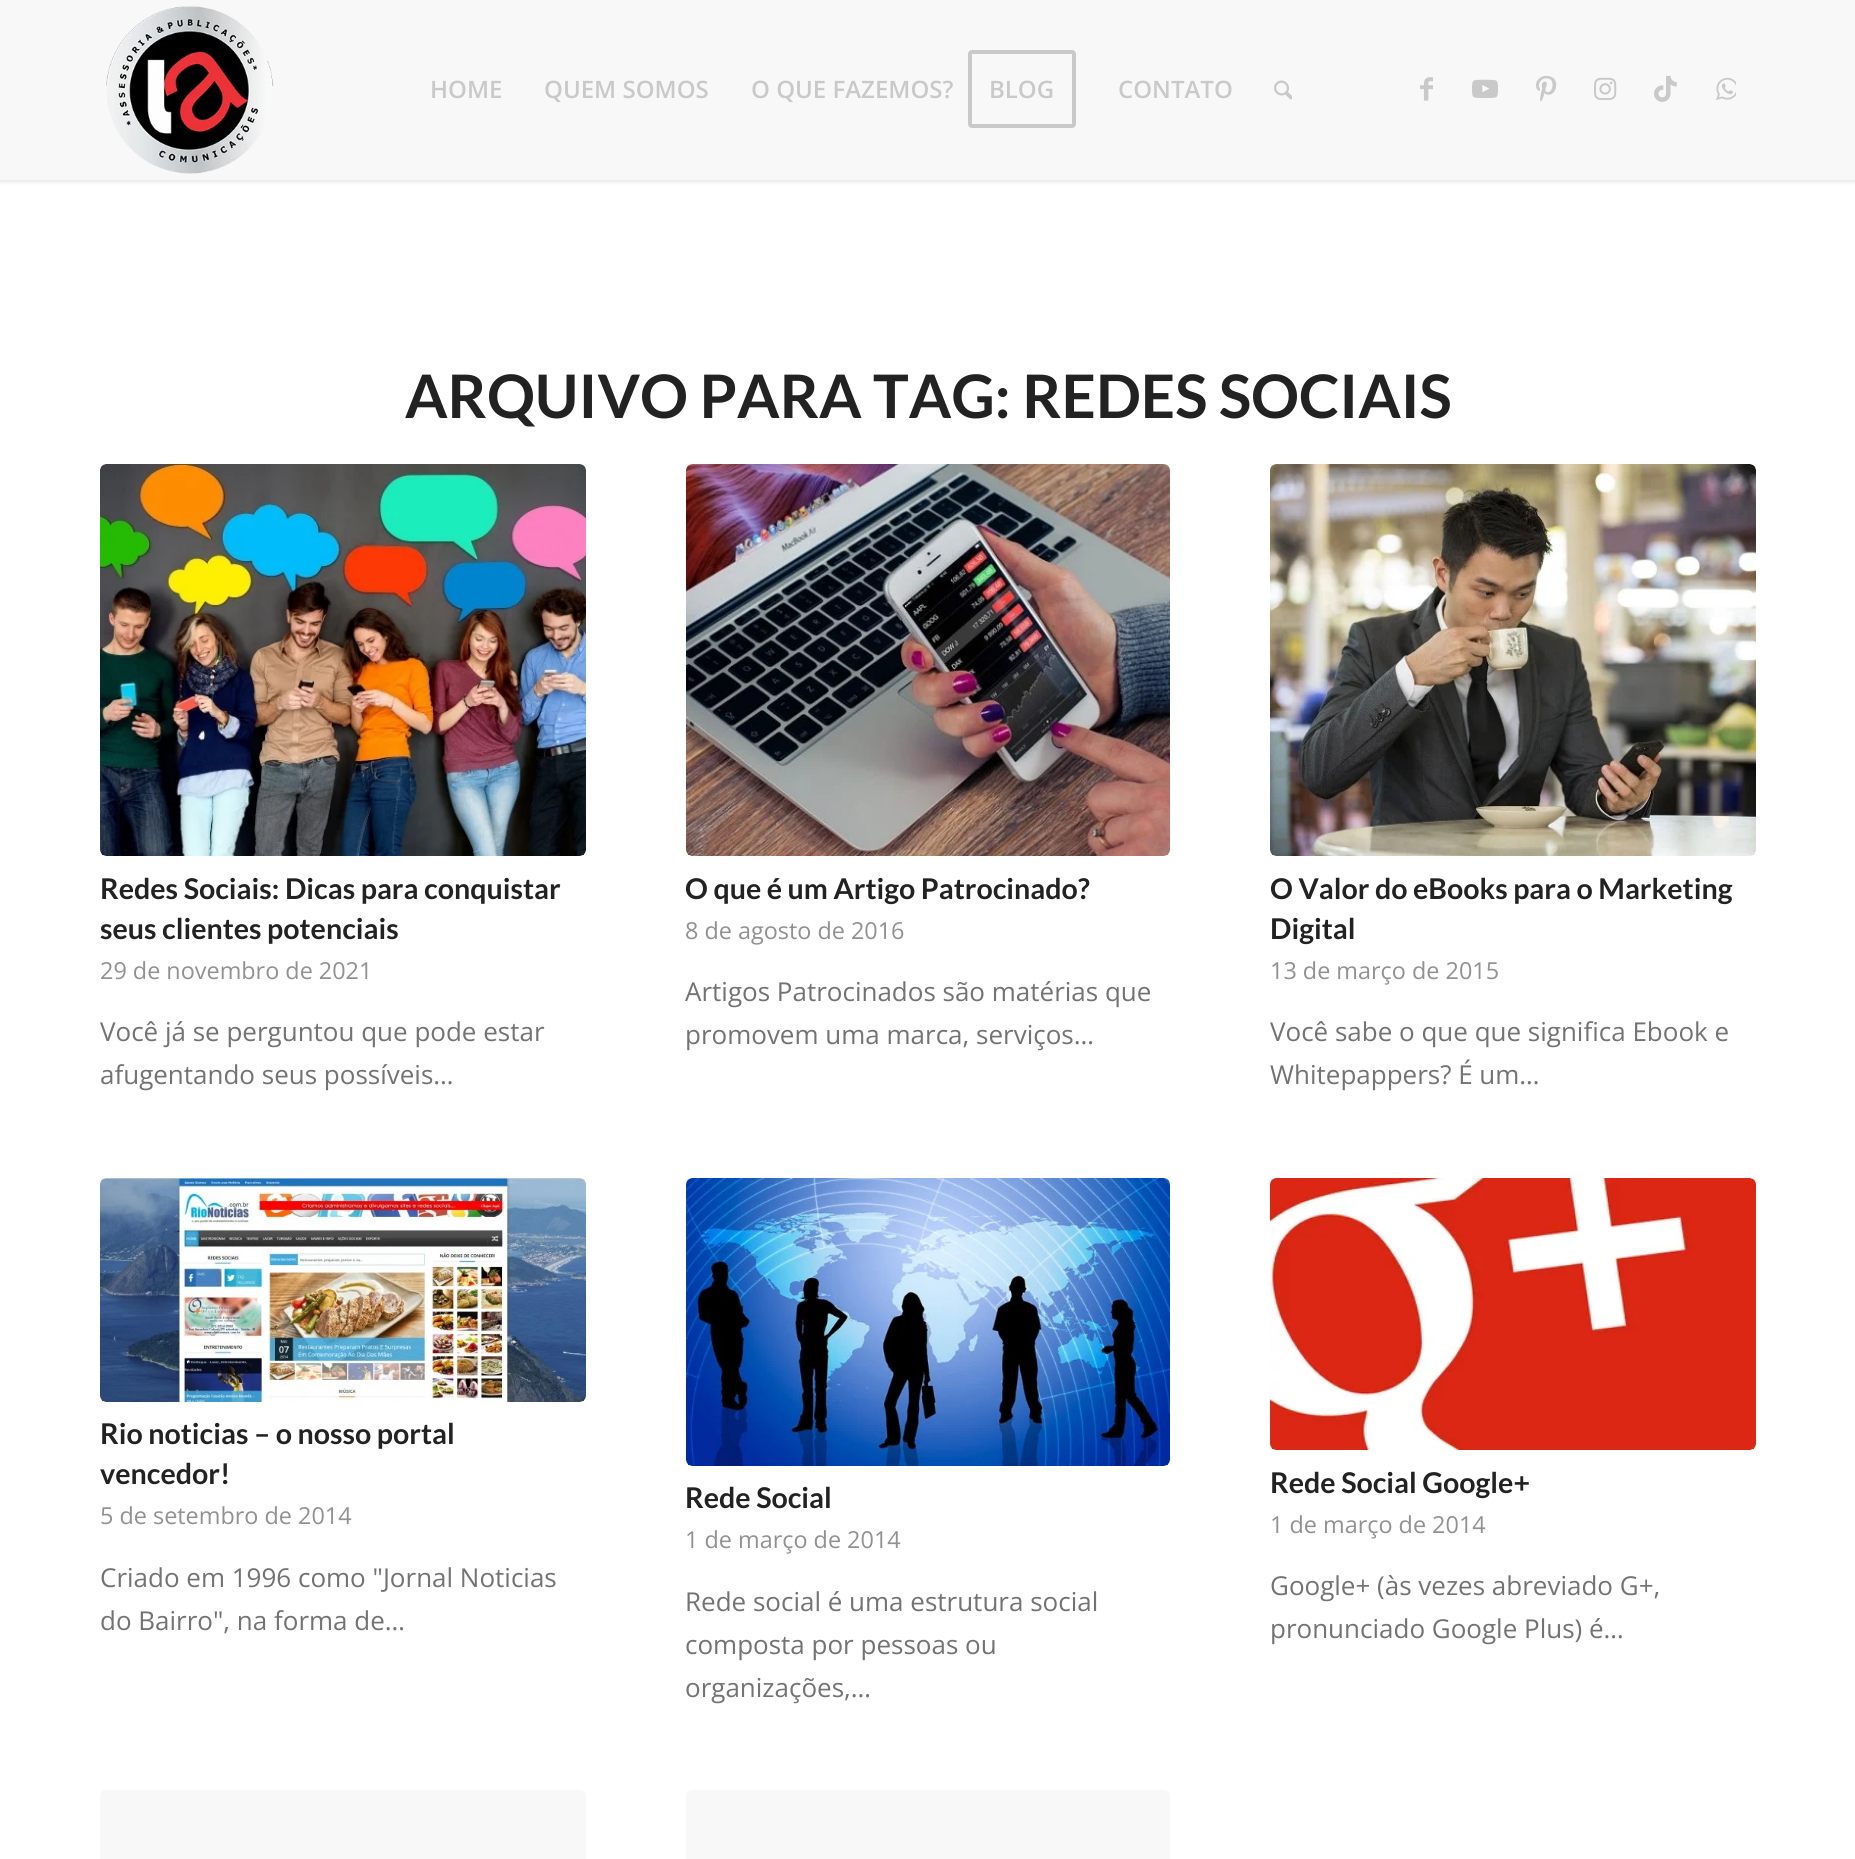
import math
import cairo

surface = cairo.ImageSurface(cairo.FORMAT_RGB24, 1855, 1859)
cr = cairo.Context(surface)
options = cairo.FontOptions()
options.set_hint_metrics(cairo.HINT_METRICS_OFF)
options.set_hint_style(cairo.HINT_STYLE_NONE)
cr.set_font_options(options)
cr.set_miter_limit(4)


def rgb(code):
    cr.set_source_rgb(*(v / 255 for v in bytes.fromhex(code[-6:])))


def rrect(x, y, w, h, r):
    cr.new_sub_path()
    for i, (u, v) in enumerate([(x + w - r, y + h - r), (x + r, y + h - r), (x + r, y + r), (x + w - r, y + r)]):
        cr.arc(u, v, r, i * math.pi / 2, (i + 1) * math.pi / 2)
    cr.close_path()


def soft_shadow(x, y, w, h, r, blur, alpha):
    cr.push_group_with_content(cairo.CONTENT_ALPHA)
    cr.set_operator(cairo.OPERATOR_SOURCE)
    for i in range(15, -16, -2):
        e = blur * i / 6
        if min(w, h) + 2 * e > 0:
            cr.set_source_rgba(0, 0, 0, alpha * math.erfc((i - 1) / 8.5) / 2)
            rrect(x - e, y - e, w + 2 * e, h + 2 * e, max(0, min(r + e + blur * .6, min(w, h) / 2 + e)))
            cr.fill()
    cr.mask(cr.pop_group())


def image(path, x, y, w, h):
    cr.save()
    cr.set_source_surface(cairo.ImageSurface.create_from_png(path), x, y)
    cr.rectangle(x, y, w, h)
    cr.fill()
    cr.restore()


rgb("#ffffff")
cr.paint()
rgb("#000000")
soft_shadow(-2, -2, 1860, 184, 0, 2, 0.1)
rgb("#f8f8f8")
cr.rectangle(0, 0, 1855, 180)
cr.fill()
image("img/1.png", 106, 6, 168, 168)
rrect(970, 52, 104, 74, 2)
rgb("#c9c9c9")
cr.set_line_width(4)
cr.stroke()
image("img/2.png", 1274, 80, 18, 20)
image("img/3.png", 1420, 77, 13, 24)
image("img/4.png", 1472, 79, 26, 19)
image("img/5.png", 1536, 75, 21, 27)
image("img/6.png", 1594, 77, 23, 23)
image("img/7.png", 1654, 75, 23, 27)
image("img/8.png", 1716, 77, 20, 23)
rgb("#f8f8f8")
rrect(100, 464, 486, 392, 6)
cr.fill()
image("img/9.png", 100, 464, 486, 392)
rrect(686, 464, 484, 392, 6)
cr.fill()
image("img/10.png", 686, 464, 484, 392)
rrect(1270, 464, 486, 392, 6)
cr.fill()
image("img/11.png", 1270, 464, 486, 392)
rrect(100, 1178, 486, 224, 6)
cr.fill()
image("img/12.png", 100, 1178, 486, 224)
rrect(686, 1178, 484, 288, 6)
cr.fill()
image("img/13.png", 686, 1178, 484, 288)
rrect(1270, 1178, 486, 272, 6)
cr.fill()
image("img/14.png", 1270, 1178, 486, 272)
rrect(100, 1790, 486, 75, 6)
cr.fill()
rrect(686, 1790, 484, 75, 6)
cr.fill()
cr.select_font_face("Open Sans SemiBold")
cr.set_font_size(24)
rgb("#c9c9c9")
for x, y, s in [
    (430, 98, "HOME"),
    (544, 98, "QUEM SOMOS"),
    (751, 98, "O QUE FAZEMOS?"),
    (989, 98, "BLOG"),
    (1118, 98, "CONTATO"),
]:
    cr.move_to(x, y)
    cr.show_text(s)
cr.select_font_face("Lato", cairo.FONT_SLANT_NORMAL, cairo.FONT_WEIGHT_BOLD)
cr.set_font_size(60)
rgb("#222222")
cr.move_to(405, 418)
cr.show_text("ARQUIVO PARA TAG: REDES SOCIAIS")
cr.set_font_size(28.6)
cr.move_to(100, 899)
cr.show_text("Redes Sociais: Dicas para conquistar")
cr.move_to(100, 939)
cr.show_text("seus clientes potenciais")
cr.select_font_face("Open Sans")
cr.set_font_size(23.4)
rgb("#919191")
cr.move_to(100, 979)
cr.show_text("29 de novembro de 2021")
cr.set_font_size(26)
rgb("#737373")
cr.move_to(100, 1041)
cr.show_text("Você já se perguntou que pode estar")
cr.move_to(100, 1084)
cr.show_text("afugentando seus possíveis…")
cr.select_font_face("Lato", cairo.FONT_SLANT_NORMAL, cairo.FONT_WEIGHT_BOLD)
cr.set_font_size(28.6)
rgb("#222222")
cr.move_to(685, 899)
cr.show_text("O que é um Artigo Patrocinado?")
cr.select_font_face("Open Sans")
cr.set_font_size(23.4)
rgb("#919191")
cr.move_to(685, 939)
cr.show_text("8 de agosto de 2016")
cr.set_font_size(26)
rgb("#737373")
cr.move_to(685, 1001)
cr.show_text("Artigos Patrocinados são matérias que")
cr.move_to(685, 1044)
cr.show_text("promovem uma marca, serviços…")
cr.select_font_face("Lato", cairo.FONT_SLANT_NORMAL, cairo.FONT_WEIGHT_BOLD)
cr.set_font_size(28.6)
rgb("#222222")
cr.move_to(1270, 899)
cr.show_text("O Valor do eBooks para o Marketing")
cr.move_to(1270, 939)
cr.show_text("Digital")
cr.select_font_face("Open Sans")
cr.set_font_size(23.4)
rgb("#919191")
cr.move_to(1270, 979)
cr.show_text("13 de março de 2015")
cr.set_font_size(26)
rgb("#737373")
cr.move_to(1270, 1041)
cr.show_text("Você sabe o que que significa Ebook e")
cr.move_to(1270, 1084)
cr.show_text("Whitepappers? É um…")
cr.select_font_face("Lato", cairo.FONT_SLANT_NORMAL, cairo.FONT_WEIGHT_BOLD)
cr.set_font_size(28.6)
rgb("#222222")
cr.move_to(100, 1444)
cr.show_text("Rio noticias – o nosso portal")
cr.move_to(100, 1484)
cr.show_text("vencedor!")
cr.select_font_face("Open Sans")
cr.set_font_size(23.4)
rgb("#919191")
cr.move_to(100, 1524)
cr.show_text("5 de setembro de 2014")
cr.set_font_size(26)
rgb("#737373")
cr.move_to(100, 1587)
cr.show_text("Criado em 1996 como \"Jornal Noticias")
cr.move_to(100, 1630)
cr.show_text("do Bairro\", na forma de…")
cr.select_font_face("Lato", cairo.FONT_SLANT_NORMAL, cairo.FONT_WEIGHT_BOLD)
cr.set_font_size(28.6)
rgb("#222222")
cr.move_to(685, 1508)
cr.show_text("Rede Social")
cr.select_font_face("Open Sans")
cr.set_font_size(23.4)
rgb("#919191")
cr.move_to(685, 1548)
cr.show_text("1 de março de 2014")
cr.set_font_size(26)
rgb("#737373")
for x, y, s in [
    (685, 1611, "Rede social é uma estrutura social"),
    (685, 1654, "composta por pessoas ou"),
    (685, 1697, "organizações,…"),
]:
    cr.move_to(x, y)
    cr.show_text(s)
cr.select_font_face("Lato", cairo.FONT_SLANT_NORMAL, cairo.FONT_WEIGHT_BOLD)
cr.set_font_size(28.6)
rgb("#222222")
cr.move_to(1270, 1493)
cr.show_text("Rede Social Google+")
cr.select_font_face("Open Sans")
cr.set_font_size(23.4)
rgb("#919191")
cr.move_to(1270, 1533)
cr.show_text("1 de março de 2014")
cr.set_font_size(26)
rgb("#737373")
cr.move_to(1270, 1595)
cr.show_text("Google+ (às vezes abreviado G+,")
cr.move_to(1270, 1638)
cr.show_text("pronunciado Google Plus) é…")
surface.write_to_png("page.png")
